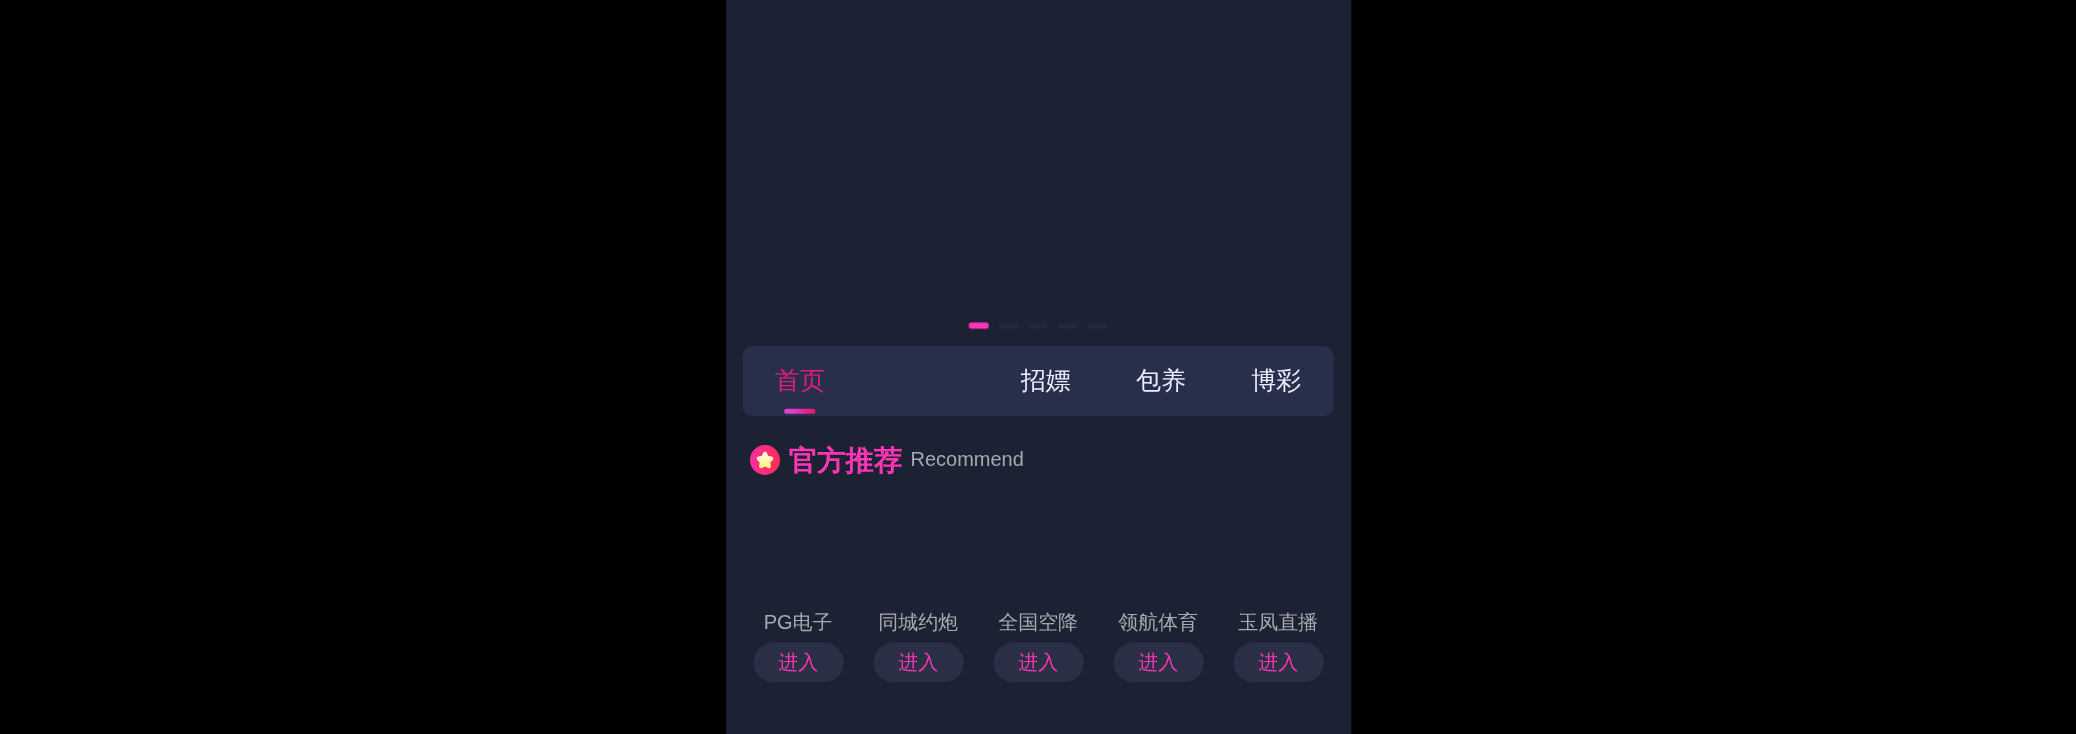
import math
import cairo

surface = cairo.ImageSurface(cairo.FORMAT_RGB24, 2076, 734)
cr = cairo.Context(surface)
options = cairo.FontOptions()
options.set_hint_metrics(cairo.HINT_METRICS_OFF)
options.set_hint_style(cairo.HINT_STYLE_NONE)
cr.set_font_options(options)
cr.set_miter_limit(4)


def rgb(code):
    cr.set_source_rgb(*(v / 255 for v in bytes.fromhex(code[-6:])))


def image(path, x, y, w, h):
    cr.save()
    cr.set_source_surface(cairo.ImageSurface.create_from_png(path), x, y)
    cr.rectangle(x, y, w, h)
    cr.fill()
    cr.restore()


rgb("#ffffff")
cr.paint()
image("img/1.png", 0, 0, 2076, 734)
surface.write_to_png("page.png")
